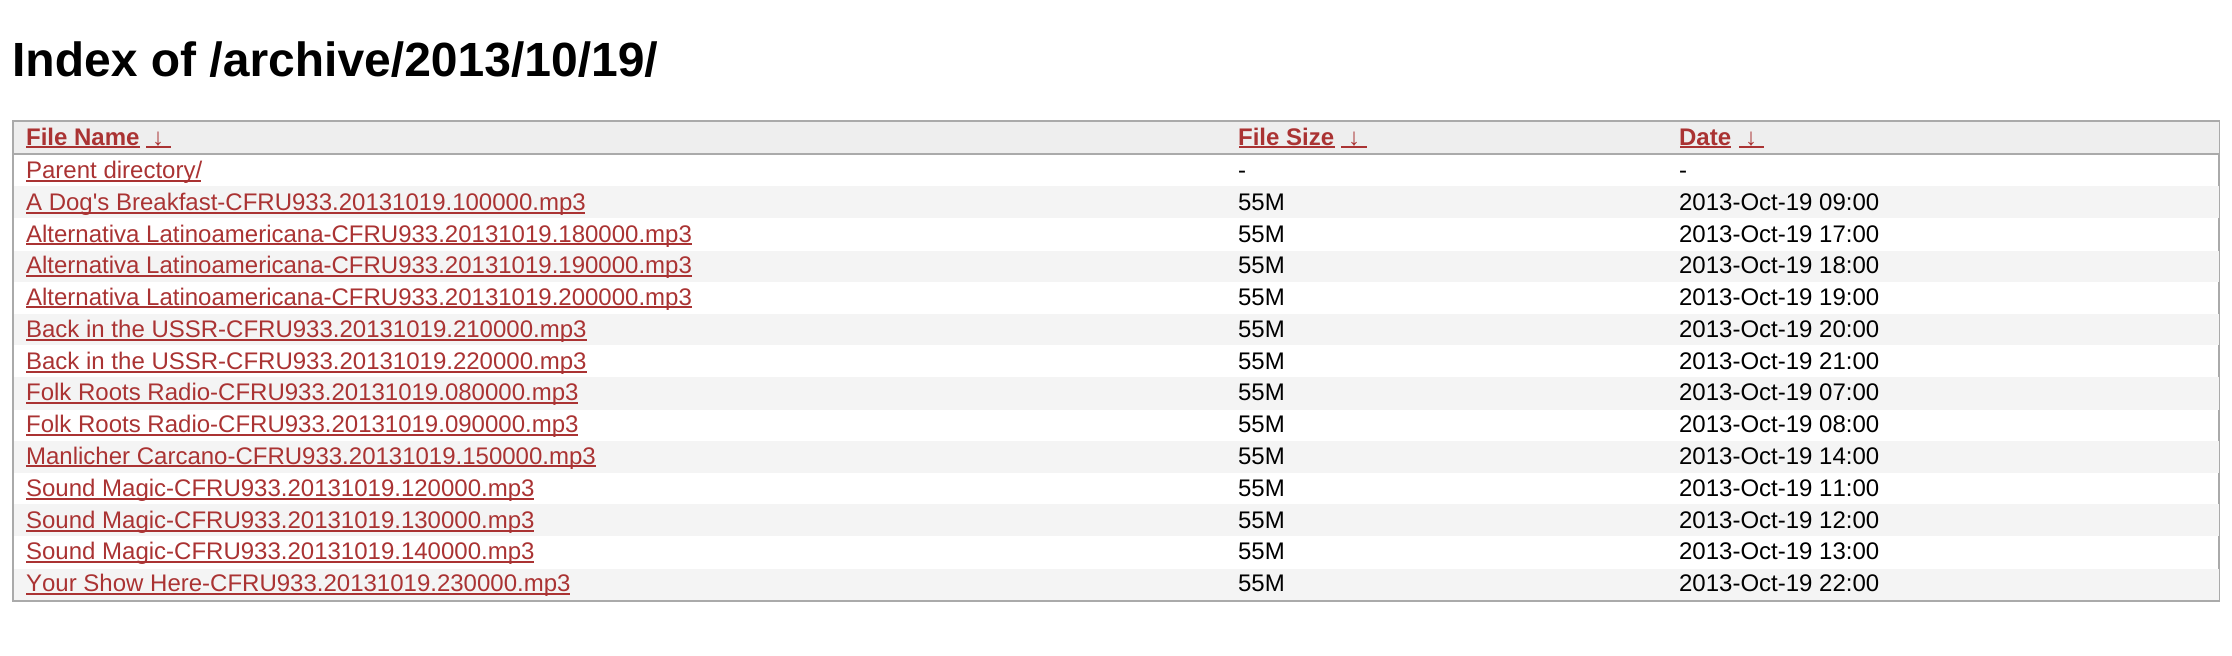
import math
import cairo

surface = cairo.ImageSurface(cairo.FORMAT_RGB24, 2232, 656)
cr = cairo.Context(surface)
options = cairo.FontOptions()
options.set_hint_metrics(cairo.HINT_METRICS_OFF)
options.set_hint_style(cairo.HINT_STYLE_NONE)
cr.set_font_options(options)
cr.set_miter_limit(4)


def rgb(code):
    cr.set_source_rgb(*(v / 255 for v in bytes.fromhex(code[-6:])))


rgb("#ffffff")
cr.paint()
cr.rectangle(13, 121, 2206, 480)
rgb("#aaaaaa")
cr.stroke()
for x, y, w, h, color in [
    (14, 122, 2205, 31, "#eeeeee"),
    (14, 153, 2205, 2, "#aaaaaa"),
    (26, 146, 114, 2, "#aa3333"),
    (146, 146, 25, 2, "#aa3333"),
    (1239, 146, 96, 2, "#aa3333"),
    (1341, 146, 26, 2, "#aa3333"),
    (1680, 146, 51, 2, "#aa3333"),
    (1739, 146, 25, 2, "#aa3333"),
    (26, 180, 175, 2, "#aa3333"),
    (14, 186, 2205, 32, "#f4f4f4"),
    (26, 212, 559, 2, "#aa3333"),
    (26, 243, 666, 2, "#aa3333"),
    (14, 251, 2205, 31, "#f4f4f4"),
    (26, 275, 666, 2, "#aa3333"),
    (26, 306, 666, 2, "#aa3333"),
    (14, 314, 2205, 31, "#f4f4f4"),
    (26, 339, 561, 2, "#aa3333"),
    (26, 371, 561, 2, "#aa3333"),
    (14, 377, 2205, 33, "#f4f4f4"),
    (26, 402, 552, 2, "#aa3333"),
    (26, 434, 552, 2, "#aa3333"),
    (14, 441, 2205, 32, "#f4f4f4"),
    (26, 465, 570, 2, "#aa3333"),
    (26, 498, 508, 2, "#aa3333"),
    (14, 504, 2205, 32, "#f4f4f4"),
    (26, 530, 508, 2, "#aa3333"),
    (26, 561, 508, 2, "#aa3333"),
    (14, 569, 2205, 31, "#f4f4f4"),
    (26, 593, 544, 2, "#aa3333"),
]:
    rgb(color)
    cr.rectangle(x, y, w, h)
    cr.fill()
cr.select_font_face("Liberation Sans", cairo.FONT_SLANT_NORMAL, cairo.FONT_WEIGHT_BOLD)
cr.set_font_size(48)
rgb("#000000")
cr.move_to(12, 76)
cr.show_text("Index of /archive/2013/10/19/")
cr.set_font_size(24)
rgb("#aa3333")
for x, y, s in [
    (26, 145, "File Name"),
    (152, 145, "↓"),
    (1238, 145, "File Size"),
    (1348, 145, "↓"),
    (1679, 145, "Date"),
    (1745, 145, "↓"),
]:
    cr.move_to(x, y)
    cr.show_text(s)
cr.select_font_face("Liberation Sans")
cr.move_to(26, 178)
cr.show_text("Parent directory/")
rgb("#000000")
cr.move_to(1238, 178)
cr.show_text("-")
cr.move_to(1679, 178)
cr.show_text("-")
rgb("#aa3333")
cr.move_to(26, 210)
cr.show_text("A Dog's Breakfast-CFRU933.20131019.100000.mp3")
rgb("#000000")
cr.move_to(1238, 210)
cr.show_text("55M")
cr.move_to(1679, 210)
cr.show_text("2013-Oct-19 09:00")
rgb("#aa3333")
cr.move_to(26, 242)
cr.show_text("Alternativa Latinoamericana-CFRU933.20131019.180000.mp3")
rgb("#000000")
cr.move_to(1238, 242)
cr.show_text("55M")
cr.move_to(1679, 242)
cr.show_text("2013-Oct-19 17:00")
rgb("#aa3333")
cr.move_to(26, 273)
cr.show_text("Alternativa Latinoamericana-CFRU933.20131019.190000.mp3")
rgb("#000000")
cr.move_to(1238, 273)
cr.show_text("55M")
cr.move_to(1679, 273)
cr.show_text("2013-Oct-19 18:00")
rgb("#aa3333")
cr.move_to(26, 305)
cr.show_text("Alternativa Latinoamericana-CFRU933.20131019.200000.mp3")
rgb("#000000")
cr.move_to(1238, 305)
cr.show_text("55M")
cr.move_to(1679, 305)
cr.show_text("2013-Oct-19 19:00")
rgb("#aa3333")
cr.move_to(26, 337)
cr.show_text("Back in the USSR-CFRU933.20131019.210000.mp3")
rgb("#000000")
cr.move_to(1238, 337)
cr.show_text("55M")
cr.move_to(1679, 337)
cr.show_text("2013-Oct-19 20:00")
rgb("#aa3333")
cr.move_to(26, 369)
cr.show_text("Back in the USSR-CFRU933.20131019.220000.mp3")
rgb("#000000")
cr.move_to(1238, 369)
cr.show_text("55M")
cr.move_to(1679, 369)
cr.show_text("2013-Oct-19 21:00")
rgb("#aa3333")
cr.move_to(26, 400)
cr.show_text("Folk Roots Radio-CFRU933.20131019.080000.mp3")
rgb("#000000")
cr.move_to(1238, 400)
cr.show_text("55M")
cr.move_to(1679, 400)
cr.show_text("2013-Oct-19 07:00")
rgb("#aa3333")
cr.move_to(26, 432)
cr.show_text("Folk Roots Radio-CFRU933.20131019.090000.mp3")
rgb("#000000")
cr.move_to(1238, 432)
cr.show_text("55M")
cr.move_to(1679, 432)
cr.show_text("2013-Oct-19 08:00")
rgb("#aa3333")
cr.move_to(26, 464)
cr.show_text("Manlicher Carcano-CFRU933.20131019.150000.mp3")
rgb("#000000")
cr.move_to(1238, 464)
cr.show_text("55M")
cr.move_to(1679, 464)
cr.show_text("2013-Oct-19 14:00")
rgb("#aa3333")
cr.move_to(26, 496)
cr.show_text("Sound Magic-CFRU933.20131019.120000.mp3")
rgb("#000000")
cr.move_to(1238, 496)
cr.show_text("55M")
cr.move_to(1679, 496)
cr.show_text("2013-Oct-19 11:00")
rgb("#aa3333")
cr.move_to(26, 528)
cr.show_text("Sound Magic-CFRU933.20131019.130000.mp3")
rgb("#000000")
cr.move_to(1238, 528)
cr.show_text("55M")
cr.move_to(1679, 528)
cr.show_text("2013-Oct-19 12:00")
rgb("#aa3333")
cr.move_to(26, 559)
cr.show_text("Sound Magic-CFRU933.20131019.140000.mp3")
rgb("#000000")
cr.move_to(1238, 559)
cr.show_text("55M")
cr.move_to(1679, 559)
cr.show_text("2013-Oct-19 13:00")
rgb("#aa3333")
cr.move_to(26, 591)
cr.show_text("Your Show Here-CFRU933.20131019.230000.mp3")
rgb("#000000")
cr.move_to(1238, 591)
cr.show_text("55M")
cr.move_to(1679, 591)
cr.show_text("2013-Oct-19 22:00")
surface.write_to_png("page.png")
